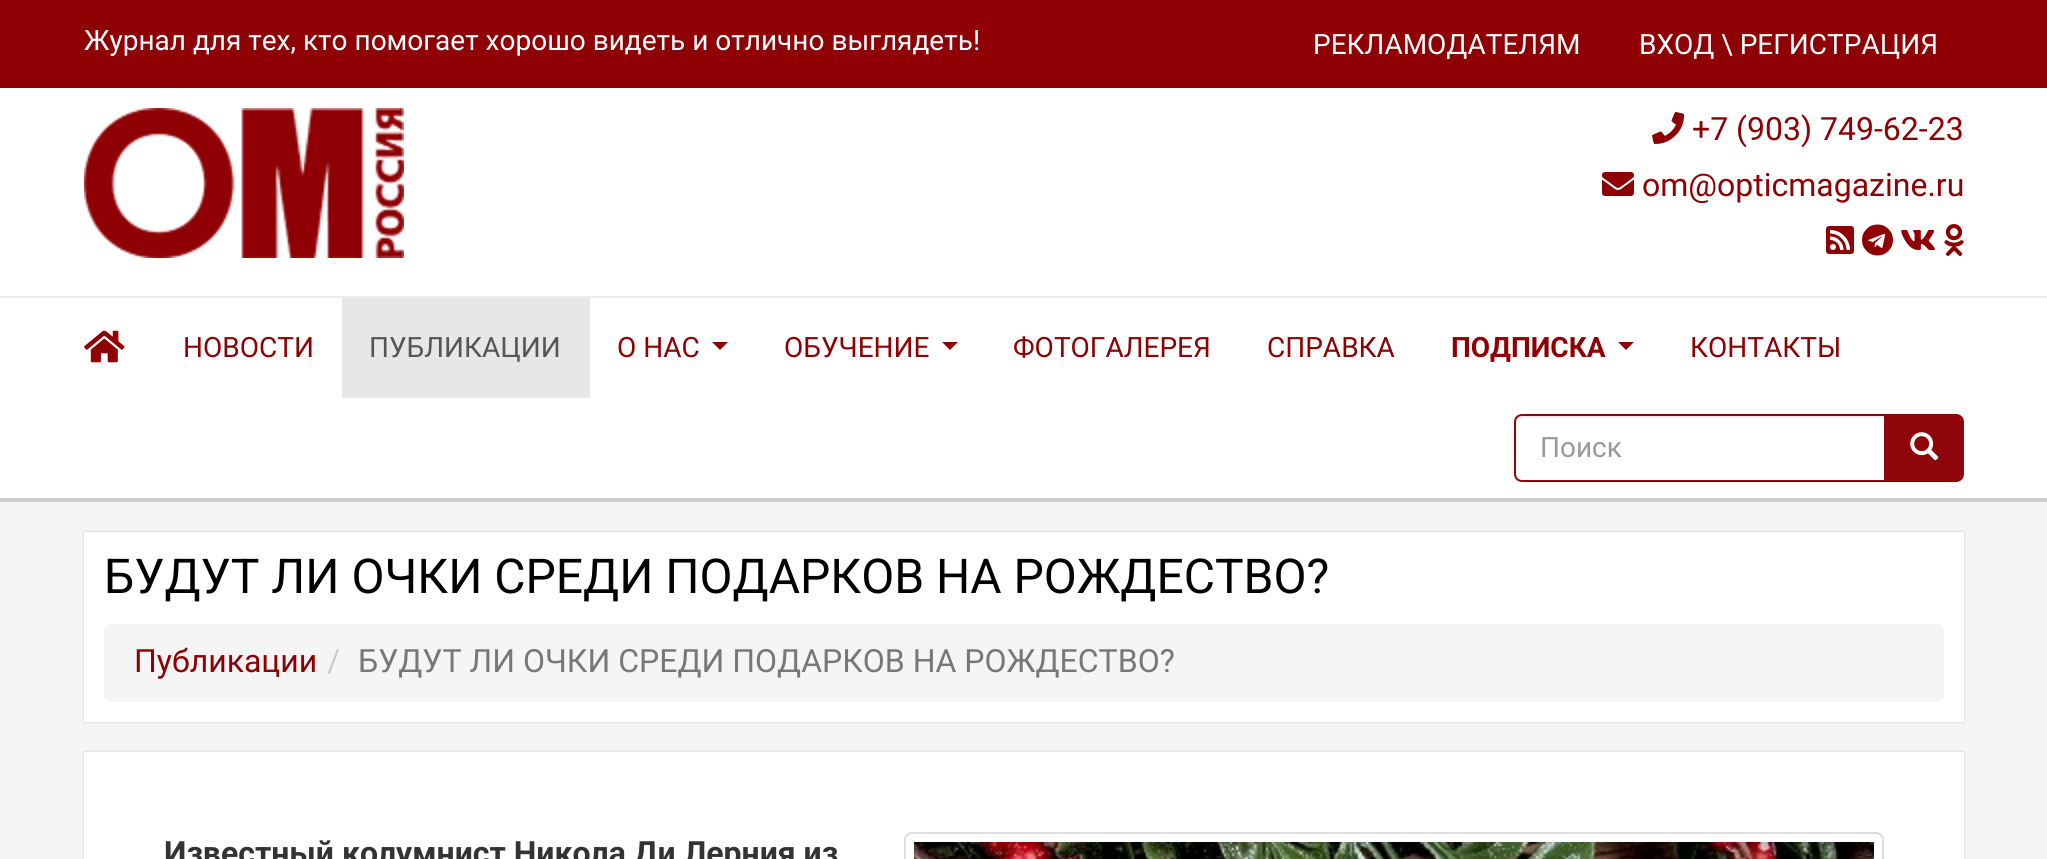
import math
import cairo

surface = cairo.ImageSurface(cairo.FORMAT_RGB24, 2047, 859)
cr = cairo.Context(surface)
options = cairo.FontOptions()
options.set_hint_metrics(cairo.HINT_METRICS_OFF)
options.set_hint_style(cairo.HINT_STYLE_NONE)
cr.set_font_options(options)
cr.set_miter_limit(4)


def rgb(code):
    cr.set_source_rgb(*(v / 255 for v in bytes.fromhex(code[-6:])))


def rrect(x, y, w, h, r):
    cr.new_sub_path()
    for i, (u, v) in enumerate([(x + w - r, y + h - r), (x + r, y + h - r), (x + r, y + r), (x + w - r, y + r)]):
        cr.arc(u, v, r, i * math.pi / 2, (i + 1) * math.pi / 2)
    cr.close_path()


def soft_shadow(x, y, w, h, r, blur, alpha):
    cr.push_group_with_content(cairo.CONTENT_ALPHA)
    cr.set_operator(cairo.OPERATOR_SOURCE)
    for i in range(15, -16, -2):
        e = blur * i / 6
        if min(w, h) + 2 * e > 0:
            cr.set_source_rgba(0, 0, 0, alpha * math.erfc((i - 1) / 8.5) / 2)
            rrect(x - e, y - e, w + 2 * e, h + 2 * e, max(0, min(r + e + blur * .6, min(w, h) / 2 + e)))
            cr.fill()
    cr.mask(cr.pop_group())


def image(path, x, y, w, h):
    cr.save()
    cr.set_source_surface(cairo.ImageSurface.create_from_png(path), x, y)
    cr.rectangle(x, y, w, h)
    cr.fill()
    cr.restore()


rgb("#ffffff")
cr.paint()
rgb("#8f0005")
cr.rectangle(0, 0, 2047, 88)
cr.fill()
image("img/1.png", 84, 108, 320, 150)
image("img/2.png", 1652, 112, 33, 32)
image("img/3.png", 1602, 172, 32, 24)
image("img/4.png", 1826, 226, 28, 28)
image("img/5.png", 1862, 224, 31, 32)
image("img/6.png", 1901, 230, 34, 20)
image("img/7.png", 1944, 224, 20, 32)
rgb("#eeeeee")
cr.rectangle(0, 296, 2047, 2)
cr.fill()
rgb("#cccccc")
cr.rectangle(0, 498, 2047, 4)
cr.fill()
image("img/8.png", 84, 330, 41, 33)
rgb("#e7e7e7")
cr.rectangle(342, 298, 248, 100)
cr.fill()
rgb("#8f0005")
cr.new_path()
cr.move_to(712, 342)
cr.line_to(728, 342)
cr.line_to(720, 350)
cr.close_path()
cr.fill()
cr.new_path()
cr.move_to(942, 342)
cr.line_to(958, 342)
cr.line_to(950, 350)
cr.close_path()
cr.fill()
cr.new_path()
cr.move_to(1618, 342)
cr.line_to(1634, 342)
cr.line_to(1626, 350)
cr.close_path()
cr.fill()
rgb("#ececec")
cr.new_path()
cr.move_to(1522, 418)
cr.line_to(1884, 418)
cr.line_to(1884, 416)
cr.line_to(1522, 416)
cr.curve_to(1519, 416, 1516, 419, 1516, 422)
cr.line_to(1516, 424)
cr.curve_to(1516, 421, 1519, 418, 1522, 418)
cr.close_path()
cr.fill()
cr.new_path()
cr.move_to(1522, 415)
cr.line_to(1885, 415)
cr.line_to(1885, 481)
cr.line_to(1522, 481)
cr.curve_to(1518, 481, 1515, 478, 1515, 474)
cr.line_to(1515, 422)
cr.curve_to(1515, 418, 1518, 415, 1522, 415)
cr.close_path()
rgb("#8e0609")
cr.stroke()
cr.new_path()
cr.move_to(1885, 415)
cr.line_to(1956, 415)
cr.curve_to(1960, 415, 1963, 418, 1963, 422)
cr.line_to(1963, 474)
cr.curve_to(1963, 478, 1960, 481, 1956, 481)
cr.line_to(1885, 481)
cr.close_path()
cr.fill_preserve()
cr.stroke()
image("img/9.png", 1910, 432, 29, 29)
rgb("#f5f5f5")
cr.rectangle(0, 502, 2047, 357)
cr.fill()
rgb("#000000")
soft_shadow(84, 532, 1880, 190, 0, 1, 0.2)
rgb("#ffffff")
cr.rectangle(84, 532, 1880, 190)
cr.fill()
rgb("#f5f5f5")
rrect(104, 624, 1840, 78, 8)
cr.fill()
rgb("#000000")
soft_shadow(84, 752, 1880, 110, 0, 1, 0.2)
rgb("#ffffff")
cr.rectangle(84, 752, 1880, 107)
cr.fill()
rrect(905, 833, 978, 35, 7)
rgb("#dddddd")
cr.stroke()
image("img/10.png", 914, 842, 960, 17)
cr.select_font_face("Roboto")
cr.set_font_size(28)
rgb("#ffffff")
for x, y, s in [
    (84, 50, "Журнал для тех, кто помогает хорошо видеть и отлично выглядеть!"),
    (1313, 54, "РЕКЛАМОДАТЕЛЯМ"),
    (1639, 54, "ВХОД \\ РЕГИСТРАЦИЯ"),
]:
    cr.move_to(x, y)
    cr.show_text(s)
cr.set_font_size(32)
rgb("#8f0005")
cr.move_to(1692, 140)
cr.show_text("+7 (903) 749-62-23")
cr.move_to(1642, 196)
cr.show_text("om@opticmagazine.ru")
cr.set_font_size(28)
cr.move_to(183, 357)
cr.show_text("НОВОСТИ")
rgb("#555555")
cr.move_to(369, 357)
cr.show_text("ПУБЛИКАЦИИ")
rgb("#8f0005")
for x, y, s in [
    (617, 357, "О НАС"),
    (784, 357, "ОБУЧЕНИЕ"),
    (1013, 357, "ФОТОГАЛЕРЕЯ"),
    (1267, 357, "СПРАВКА"),
]:
    cr.move_to(x, y)
    cr.show_text(s)
cr.select_font_face("Roboto", cairo.FONT_SLANT_NORMAL, cairo.FONT_WEIGHT_BOLD)
cr.move_to(1451, 357)
cr.show_text("ПОДПИСКА")
cr.select_font_face("Roboto")
cr.move_to(1690, 357)
cr.show_text("КОНТАКТЫ")
rgb("#999999")
cr.move_to(1540, 457)
cr.show_text("Поиск")
cr.set_font_size(48)
rgb("#000000")
cr.move_to(104, 593)
cr.show_text("БУДУТ ЛИ ОЧКИ СРЕДИ ПОДАРКОВ НА РОЖДЕСТВО?")
cr.set_font_size(32)
rgb("#8f0005")
cr.move_to(134, 672)
cr.show_text("Публикации")
rgb("#cccccc")
cr.move_to(327, 672)
cr.show_text("/")
rgb("#777777")
cr.move_to(358, 672)
cr.show_text("БУДУТ ЛИ ОЧКИ СРЕДИ ПОДАРКОВ НА РОЖДЕСТВО?")
cr.select_font_face("Roboto", cairo.FONT_SLANT_NORMAL, cairo.FONT_WEIGHT_BOLD)
rgb("#333333")
cr.move_to(164, 864)
cr.show_text("Известный колумнист Никола Ди Лерния из")
surface.write_to_png("page.png")
